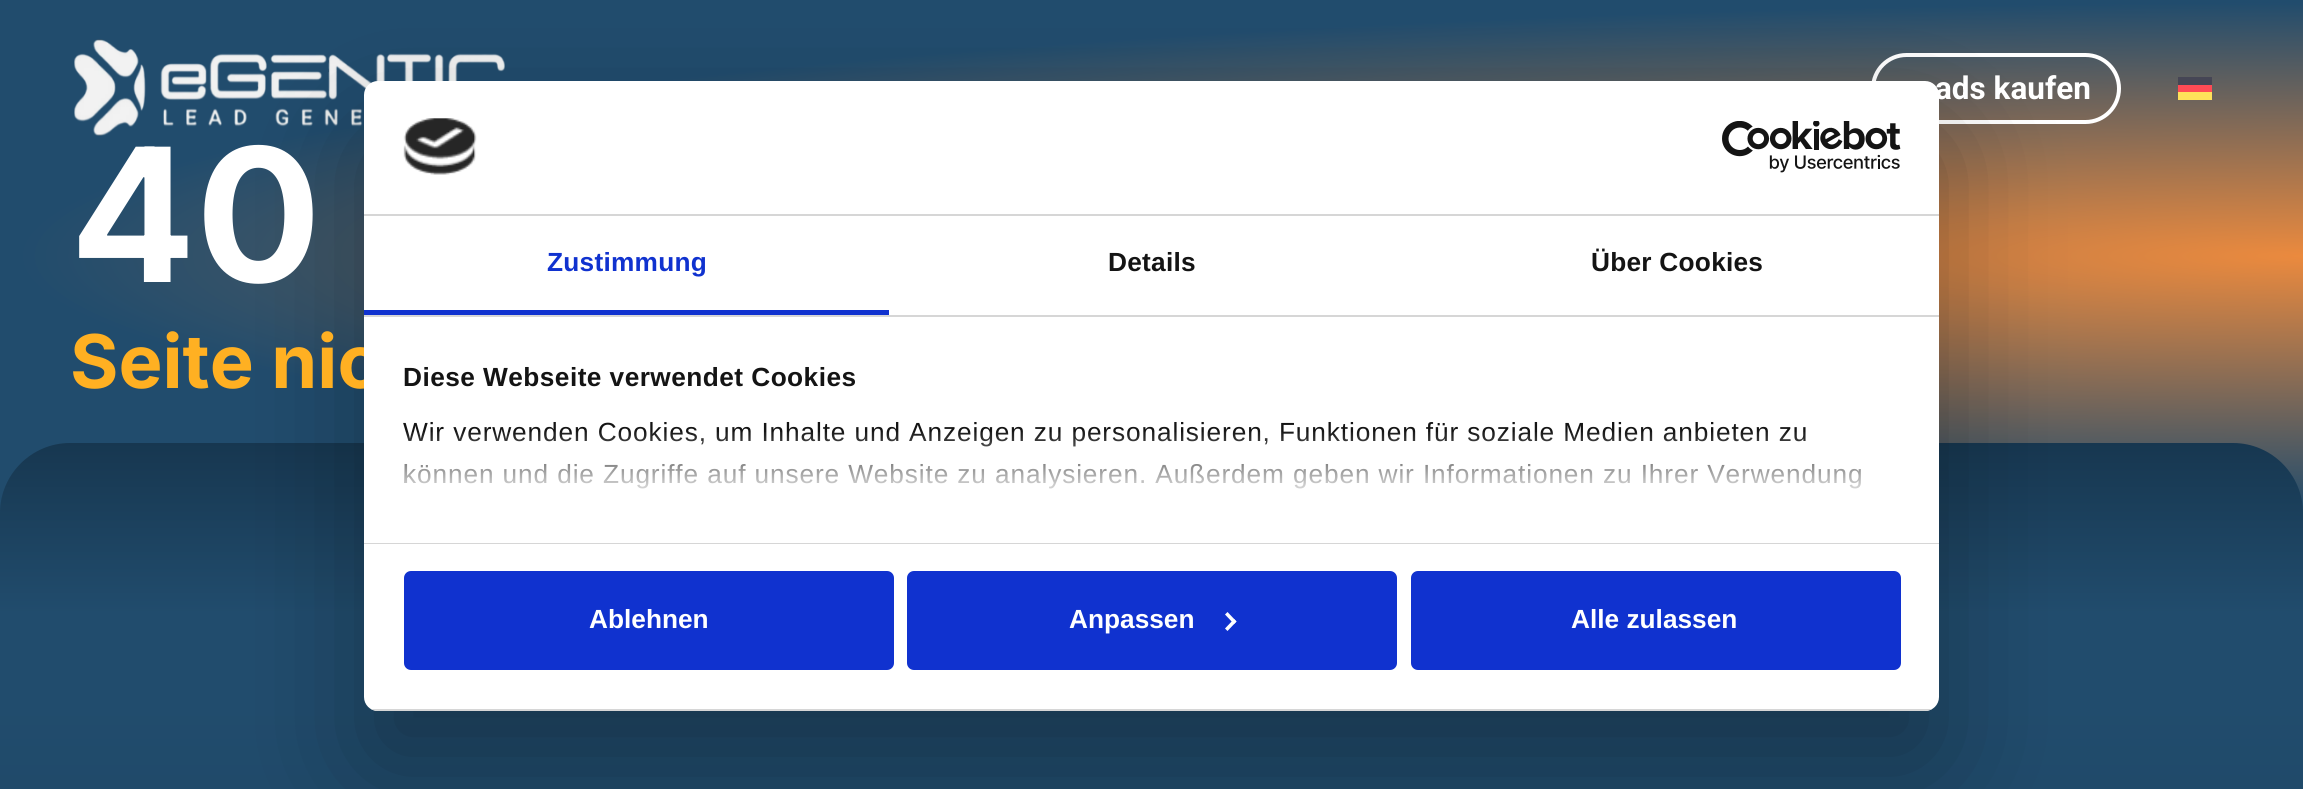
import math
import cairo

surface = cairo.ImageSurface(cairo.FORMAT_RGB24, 2303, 789)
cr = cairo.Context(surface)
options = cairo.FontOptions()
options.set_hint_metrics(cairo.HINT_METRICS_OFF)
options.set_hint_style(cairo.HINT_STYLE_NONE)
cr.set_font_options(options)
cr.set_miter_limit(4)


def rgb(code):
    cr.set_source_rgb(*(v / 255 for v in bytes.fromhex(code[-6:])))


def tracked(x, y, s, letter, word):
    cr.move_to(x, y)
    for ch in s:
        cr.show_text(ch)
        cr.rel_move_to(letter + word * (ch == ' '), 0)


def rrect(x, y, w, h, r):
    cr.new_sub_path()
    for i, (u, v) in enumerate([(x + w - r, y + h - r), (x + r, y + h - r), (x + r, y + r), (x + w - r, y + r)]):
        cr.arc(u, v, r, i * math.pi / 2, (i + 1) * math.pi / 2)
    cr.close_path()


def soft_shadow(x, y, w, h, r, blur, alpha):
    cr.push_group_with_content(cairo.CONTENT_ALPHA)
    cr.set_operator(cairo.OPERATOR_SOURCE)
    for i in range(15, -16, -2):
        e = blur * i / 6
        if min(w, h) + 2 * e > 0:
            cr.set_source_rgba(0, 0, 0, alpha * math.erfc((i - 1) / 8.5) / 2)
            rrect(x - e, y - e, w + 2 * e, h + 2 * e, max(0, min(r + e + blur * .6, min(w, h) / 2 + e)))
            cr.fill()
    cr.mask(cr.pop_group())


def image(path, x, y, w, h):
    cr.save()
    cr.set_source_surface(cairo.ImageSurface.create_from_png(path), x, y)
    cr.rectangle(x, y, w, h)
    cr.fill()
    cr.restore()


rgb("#ffffff")
cr.paint()
gradient = cairo.RadialGradient(0, 0, 0, 0, 0, 1)
gradient.set_matrix(cairo.Matrix(1 / 3257, 0, 0, 1 / 363, -1 * 2303 / 3257, -1 * 256 / 363))
gradient.add_color_stop_rgba(0, 0.922, 0.541, 0.243, 1)
gradient.add_color_stop_rgba(0.7, 0.129, 0.298, 0.427, 1)
cr.set_source(gradient)
cr.rectangle(0, 0, 2303, 513)
cr.fill()
image("img/1.png", 74, 39, 431, 97)
rrect(1873, 55, 246, 67, 33.5)
rgb("#ffffff")
cr.set_line_width(4)
cr.stroke()
for x, y, w, h, color in [
    (2178, 77, 34, 8, "#464655"),
    (2178, 85, 34, 7, "#ff4b55"),
    (2178, 92, 34, 8, "#ffe15a"),
]:
    rgb(color)
    cr.rectangle(x, y, w, h)
    cr.fill()
gradient = cairo.LinearGradient(1152, 705, 1152, 443)
gradient.add_color_stop_rgba(0.35, 0.129, 0.298, 0.427, 1)
gradient.add_color_stop_rgba(1, 0.09, 0.216, 0.314, 1)
cr.set_source(gradient)
cr.new_path()
cr.move_to(70, 443)
cr.line_to(2233, 443)
cr.curve_to(2271.5, 443, 2303, 474.5, 2303, 513)
cr.line_to(2303, 705)
cr.line_to(0, 705)
cr.line_to(0, 513)
cr.curve_to(0, 474.5, 31.5, 443, 70, 443)
cr.close_path()
cr.fill()
gradient = cairo.LinearGradient(1152, 705, 1152, 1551)
gradient.add_color_stop_rgba(0, 0.129, 0.298, 0.427, 1)
gradient.add_color_stop_rgba(1, 0.09, 0.216, 0.314, 1)
cr.set_source(gradient)
cr.rectangle(0, 705, 2303, 84)
cr.fill()
rgb("#000000")
soft_shadow(364, 137, 1575, 630, 14, 59.5, 0.3)
cr.select_font_face("Roboto", cairo.FONT_SLANT_NORMAL, cairo.FONT_WEIGHT_BOLD)
cr.set_font_size(31.5)
rgb("#ffffff")
cr.move_to(1935, 99)
cr.show_text("ads kaufen")
cr.select_font_face("Inter", cairo.FONT_SLANT_NORMAL, cairo.FONT_WEIGHT_BOLD)
cr.set_font_size(186)
cr.move_to(70, 282)
cr.show_text("40")
cr.set_font_size(74)
rgb("#ffb022")
cr.move_to(70, 388)
cr.show_text("Seite nic")
rgb("#ffffff")
rrect(364, 81, 1575, 630, 14)
cr.fill()
rgb("#d6d6d6")
cr.rectangle(364, 214, 1575, 2)
cr.fill()
image("img/2.png", 403, 118, 74, 57)
image("img/3.png", 1722, 121, 179, 52)
cr.rectangle(364, 315, 1575, 2)
cr.fill()
rgb("#1032cf")
cr.rectangle(364, 310, 525, 5)
cr.fill()
cr.select_font_face("Liberation Sans", cairo.FONT_SLANT_NORMAL, cairo.FONT_WEIGHT_BOLD)
cr.set_font_size(26.25)
tracked(547, 271, "Zustimmung", 0.25, 0)
rgb("#141414")
tracked(1108, 271, "Details", 0.25, 0)
tracked(1591, 271, "Über Cookies", 0.25, 0)
rgb("#d6d6d6")
cr.rectangle(364, 543, 1575, 1)
cr.fill()
rgb("#141414")
tracked(403, 386, "Diese Webseite verwendet Cookies", 0.45, 0)
cr.select_font_face("Liberation Sans")
tracked(403, 441, "Wir verwenden Cookies, um Inhalte und Anzeigen zu personalisieren, Funktionen für soziale Medien anbieten zu", 0.88, 0)
tracked(403, 483, "können und die Zugriffe auf unsere Website zu analysieren. Außerdem geben wir Informationen zu Ihrer Verwendung", 0.88, 0)
gradient = cairo.LinearGradient(1134, 542, 1134, 430)
gradient.add_color_stop_rgba(0, 1, 1, 1, 1)
gradient.add_color_stop_rgba(0.5, 1, 1, 1, 0.8)
gradient.add_color_stop_rgba(1, 1, 1, 1, 0)
cr.set_source(gradient)
cr.rectangle(405, 432, 1456, 57)
cr.fill()
cr.save()
rrect(364, 81, 1575, 630, 14)
cr.clip()
rgb("#d6d6d6")
cr.rectangle(364, 709, 1575, 2)
cr.fill()
cr.restore()
rgb("#1032cf")
rrect(406, 573, 486, 95, 5)
cr.fill_preserve()
cr.stroke()
cr.select_font_face("Liberation Sans", cairo.FONT_SLANT_NORMAL, cairo.FONT_WEIGHT_BOLD)
rgb("#ffffff")
cr.move_to(589, 628)
cr.show_text("Ablehnen")
rgb("#1032cf")
rrect(909, 573, 486, 95, 5)
cr.fill_preserve()
cr.stroke()
rgb("#ffffff")
cr.move_to(1069, 628)
cr.show_text("Anpassen")
cr.new_path()
cr.move_to(1227.5, 612)
cr.line_to(1236.5, 621.5)
cr.line_to(1234, 624)
cr.line_to(1225, 614.5)
cr.close_path()
cr.fill()
cr.new_path()
cr.move_to(1234, 619)
cr.line_to(1236.5, 621.5)
cr.line_to(1227.5, 631)
cr.line_to(1225, 628.5)
cr.close_path()
cr.fill()
rgb("#1032cf")
rrect(1413, 573, 486, 95, 5)
cr.fill_preserve()
cr.stroke()
rgb("#ffffff")
cr.move_to(1571, 628)
cr.show_text("Alle zulassen")
surface.write_to_png("page.png")
